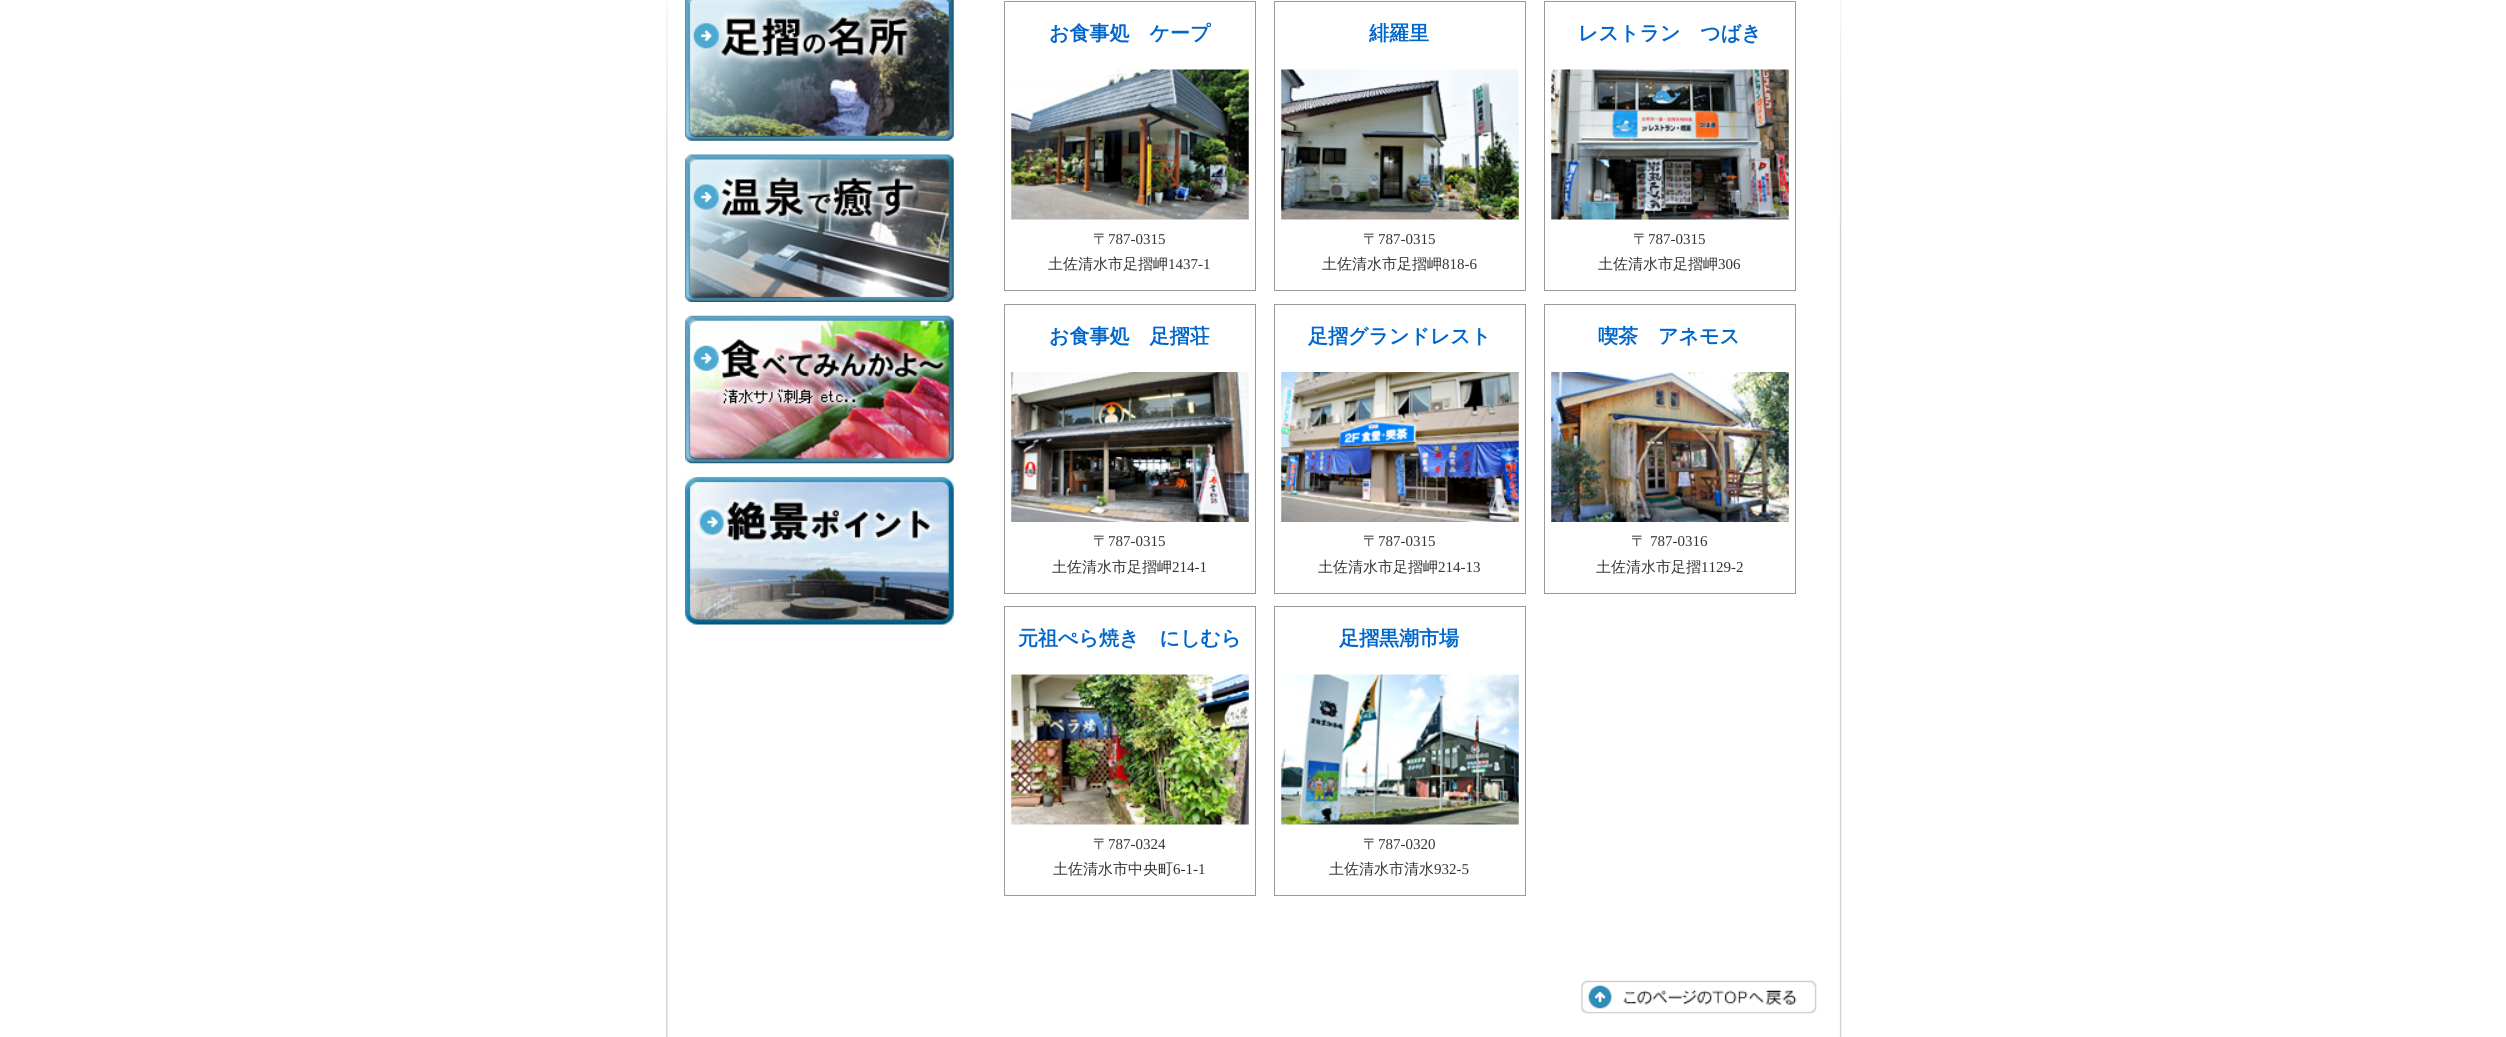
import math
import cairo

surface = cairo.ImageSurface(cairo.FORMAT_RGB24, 2506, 1037)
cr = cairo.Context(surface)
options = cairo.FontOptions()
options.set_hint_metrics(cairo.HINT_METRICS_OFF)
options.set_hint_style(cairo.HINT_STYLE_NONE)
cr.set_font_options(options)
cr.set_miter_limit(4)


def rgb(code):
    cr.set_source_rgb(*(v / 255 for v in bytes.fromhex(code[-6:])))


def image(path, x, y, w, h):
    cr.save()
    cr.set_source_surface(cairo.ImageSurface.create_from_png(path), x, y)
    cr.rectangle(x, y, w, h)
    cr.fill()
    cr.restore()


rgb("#ffffff")
cr.paint()
image("img/1.png", 666, 0, 1176, 1037)
image("img/2.png", 685, 0, 269, 141)
image("img/3.png", 685, 154, 269, 148)
image("img/4.png", 685, 315, 269, 149)
image("img/5.png", 685, 477, 269, 148)
cr.rectangle(1004.5, 1.5, 251, 289)
rgb("#999999")
cr.set_line_width(1)
cr.stroke()
image("img/6.png", 1011, 69, 238, 151)
cr.rectangle(1274.5, 1.5, 251, 289)
cr.stroke()
image("img/7.png", 1281, 69, 238, 151)
cr.rectangle(1544.5, 1.5, 251, 289)
cr.stroke()
image("img/8.png", 1551, 69, 238, 151)
cr.rectangle(1004.5, 304.5, 251, 289)
cr.stroke()
image("img/9.png", 1011, 372, 238, 150)
cr.rectangle(1274.5, 304.5, 251, 289)
cr.stroke()
image("img/10.png", 1281, 372, 238, 150)
cr.rectangle(1544.5, 304.5, 251, 289)
cr.stroke()
image("img/11.png", 1551, 372, 238, 150)
cr.rectangle(1004.5, 606.5, 251, 289)
cr.stroke()
image("img/12.png", 1011, 674, 238, 151)
cr.rectangle(1274.5, 606.5, 251, 289)
cr.stroke()
image("img/13.png", 1281, 674, 238, 151)
image("img/14.png", 1581, 980, 236, 34)
cr.select_font_face("WenQuanYi Zen Hei", cairo.FONT_SLANT_NORMAL, cairo.FONT_WEIGHT_BOLD)
cr.set_font_size(20)
rgb("#0066cc")
cr.move_to(1049, 40)
cr.show_text("お食事処　ケープ")
cr.select_font_face("WenQuanYi Zen Hei Medium")
cr.set_font_size(15)
rgb("#333333")
cr.move_to(1093, 244)
cr.show_text("〒")
cr.select_font_face("Liberation Serif")
cr.move_to(1108, 244)
cr.show_text("787-0315")
cr.select_font_face("WenQuanYi Zen Hei Medium")
cr.move_to(1048, 269)
cr.show_text("土佐清水市足摺岬")
cr.select_font_face("Liberation Serif")
cr.move_to(1168, 269)
cr.show_text("1437-1")
cr.select_font_face("WenQuanYi Zen Hei", cairo.FONT_SLANT_NORMAL, cairo.FONT_WEIGHT_BOLD)
cr.set_font_size(20)
rgb("#0066cc")
cr.move_to(1369, 40)
cr.show_text("緋羅里")
cr.select_font_face("WenQuanYi Zen Hei Medium")
cr.set_font_size(15)
rgb("#333333")
cr.move_to(1363, 244)
cr.show_text("〒")
cr.select_font_face("Liberation Serif")
cr.move_to(1378, 244)
cr.show_text("787-0315")
cr.select_font_face("WenQuanYi Zen Hei Medium")
cr.move_to(1322, 269)
cr.show_text("土佐清水市足摺岬")
cr.select_font_face("Liberation Serif")
cr.move_to(1442, 269)
cr.show_text("818-6")
cr.select_font_face("WenQuanYi Zen Hei", cairo.FONT_SLANT_NORMAL, cairo.FONT_WEIGHT_BOLD)
cr.set_font_size(20)
rgb("#0066cc")
cr.move_to(1578, 40)
cr.show_text("レストラン　つばき")
cr.select_font_face("WenQuanYi Zen Hei Medium")
cr.set_font_size(15)
rgb("#333333")
cr.move_to(1633, 244)
cr.show_text("〒")
cr.select_font_face("Liberation Serif")
cr.move_to(1648, 244)
cr.show_text("787-0315")
cr.select_font_face("WenQuanYi Zen Hei Medium")
cr.move_to(1598, 269)
cr.show_text("土佐清水市足摺岬")
cr.select_font_face("Liberation Serif")
cr.move_to(1718, 269)
cr.show_text("306")
cr.select_font_face("WenQuanYi Zen Hei", cairo.FONT_SLANT_NORMAL, cairo.FONT_WEIGHT_BOLD)
cr.set_font_size(20)
rgb("#0066cc")
cr.move_to(1049, 343)
cr.show_text("お食事処　足摺荘")
cr.select_font_face("WenQuanYi Zen Hei Medium")
cr.set_font_size(15)
rgb("#333333")
cr.move_to(1093, 546)
cr.show_text("〒")
cr.select_font_face("Liberation Serif")
cr.move_to(1108, 546)
cr.show_text("787-0315")
cr.select_font_face("WenQuanYi Zen Hei Medium")
cr.move_to(1052, 572)
cr.show_text("土佐清水市足摺岬")
cr.select_font_face("Liberation Serif")
cr.move_to(1172, 572)
cr.show_text("214-1")
cr.select_font_face("WenQuanYi Zen Hei", cairo.FONT_SLANT_NORMAL, cairo.FONT_WEIGHT_BOLD)
cr.set_font_size(20)
rgb("#0066cc")
cr.move_to(1308, 343)
cr.show_text("足摺グランドレスト")
cr.select_font_face("WenQuanYi Zen Hei Medium")
cr.set_font_size(15)
rgb("#333333")
cr.move_to(1363, 546)
cr.show_text("〒")
cr.select_font_face("Liberation Serif")
cr.move_to(1378, 546)
cr.show_text("787-0315")
cr.select_font_face("WenQuanYi Zen Hei Medium")
cr.move_to(1318, 572)
cr.show_text("土佐清水市足摺岬")
cr.select_font_face("Liberation Serif")
cr.move_to(1438, 572)
cr.show_text("214-13")
cr.select_font_face("WenQuanYi Zen Hei", cairo.FONT_SLANT_NORMAL, cairo.FONT_WEIGHT_BOLD)
cr.set_font_size(20)
rgb("#0066cc")
cr.move_to(1598, 343)
cr.show_text("喫茶　アネモス")
cr.select_font_face("WenQuanYi Zen Hei Medium")
cr.set_font_size(15)
rgb("#333333")
cr.move_to(1631, 546)
cr.show_text("〒")
cr.select_font_face("Liberation Serif")
cr.move_to(1650, 546)
cr.show_text("787-0316")
cr.select_font_face("WenQuanYi Zen Hei Medium")
cr.move_to(1596, 572)
cr.show_text("土佐清水市足摺")
cr.select_font_face("Liberation Serif")
cr.move_to(1701, 572)
cr.show_text("1129-2")
cr.select_font_face("WenQuanYi Zen Hei", cairo.FONT_SLANT_NORMAL, cairo.FONT_WEIGHT_BOLD)
cr.set_font_size(20)
rgb("#0066cc")
cr.move_to(1018, 645)
cr.show_text("元祖ぺら焼き　にしむら")
cr.select_font_face("WenQuanYi Zen Hei Medium")
cr.set_font_size(15)
rgb("#333333")
cr.move_to(1093, 849)
cr.show_text("〒")
cr.select_font_face("Liberation Serif")
cr.move_to(1108, 849)
cr.show_text("787-0324")
cr.select_font_face("WenQuanYi Zen Hei Medium")
cr.move_to(1053, 874)
cr.show_text("土佐清水市中央町")
cr.select_font_face("Liberation Serif")
cr.move_to(1173, 874)
cr.show_text("6-1-1")
cr.select_font_face("WenQuanYi Zen Hei", cairo.FONT_SLANT_NORMAL, cairo.FONT_WEIGHT_BOLD)
cr.set_font_size(20)
rgb("#0066cc")
cr.move_to(1339, 645)
cr.show_text("足摺黒潮市場")
cr.select_font_face("WenQuanYi Zen Hei Medium")
cr.set_font_size(15)
rgb("#333333")
cr.move_to(1363, 849)
cr.show_text("〒")
cr.select_font_face("Liberation Serif")
cr.move_to(1378, 849)
cr.show_text("787-0320")
cr.select_font_face("WenQuanYi Zen Hei Medium")
cr.move_to(1329, 874)
cr.show_text("土佐清水市清水")
cr.select_font_face("Liberation Serif")
cr.move_to(1434, 874)
cr.show_text("932-5")
surface.write_to_png("page.png")
